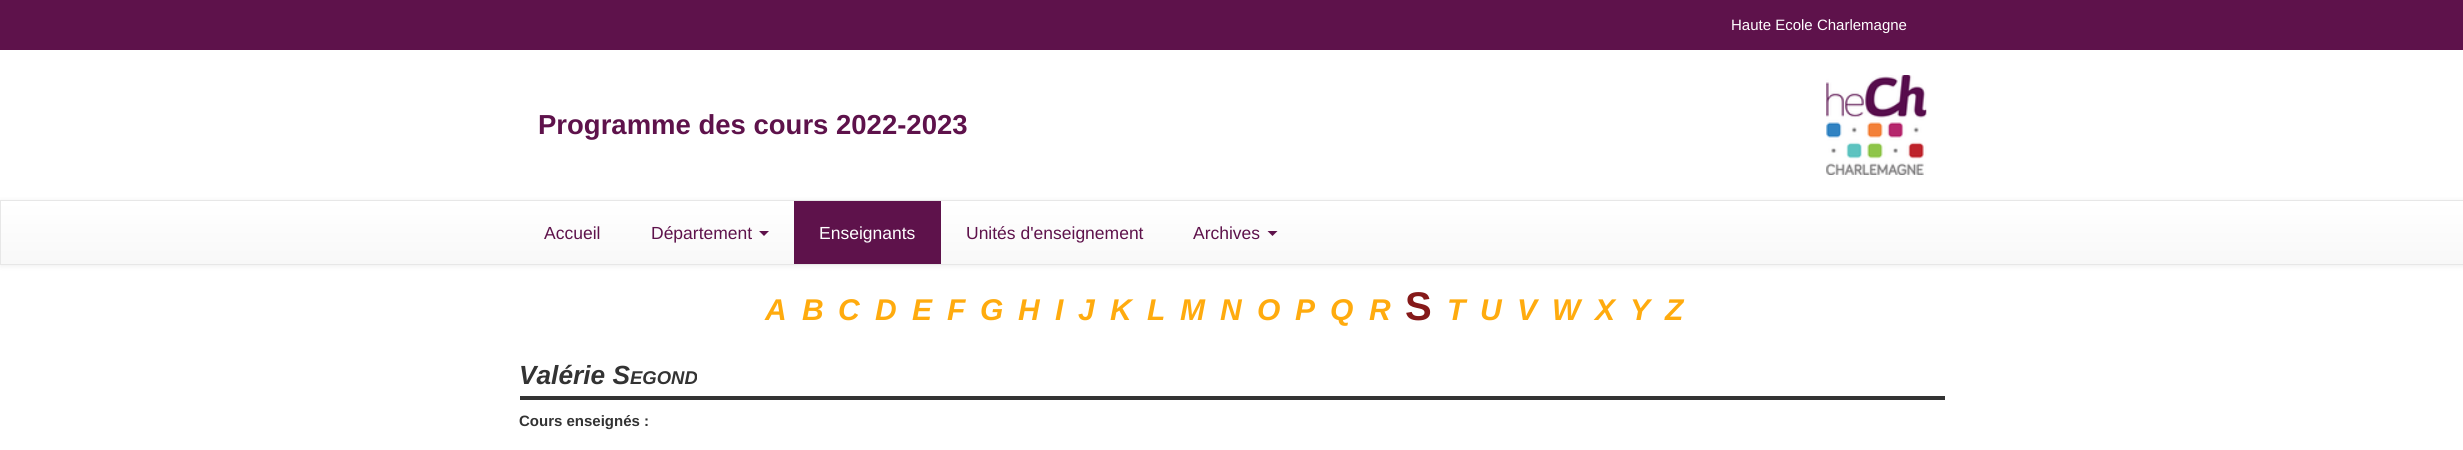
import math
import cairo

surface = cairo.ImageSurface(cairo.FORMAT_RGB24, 2463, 450)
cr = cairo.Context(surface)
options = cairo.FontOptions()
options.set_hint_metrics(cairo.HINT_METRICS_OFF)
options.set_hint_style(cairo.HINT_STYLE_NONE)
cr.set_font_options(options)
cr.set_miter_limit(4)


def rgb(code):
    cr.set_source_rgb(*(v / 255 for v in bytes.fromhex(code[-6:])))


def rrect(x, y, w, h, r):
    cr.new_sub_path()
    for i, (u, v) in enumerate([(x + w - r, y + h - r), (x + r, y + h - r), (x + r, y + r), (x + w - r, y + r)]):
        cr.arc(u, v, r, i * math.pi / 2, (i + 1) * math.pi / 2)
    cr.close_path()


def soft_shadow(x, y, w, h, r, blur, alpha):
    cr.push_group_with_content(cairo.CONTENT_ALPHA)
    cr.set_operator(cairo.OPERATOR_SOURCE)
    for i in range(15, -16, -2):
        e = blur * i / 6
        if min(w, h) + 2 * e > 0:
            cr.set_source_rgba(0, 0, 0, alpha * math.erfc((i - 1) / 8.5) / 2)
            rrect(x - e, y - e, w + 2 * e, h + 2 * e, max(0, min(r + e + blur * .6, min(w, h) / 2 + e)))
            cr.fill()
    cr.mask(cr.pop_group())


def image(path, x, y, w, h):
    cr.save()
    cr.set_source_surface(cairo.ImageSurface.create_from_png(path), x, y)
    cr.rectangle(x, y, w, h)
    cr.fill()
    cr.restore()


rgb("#ffffff")
cr.paint()
rgb("#5e124b")
cr.rectangle(0, 0, 2463, 50)
cr.fill()
image("img/1.png", 1826, 75, 101, 100)
rgb("#000000")
soft_shadow(0, 201, 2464, 65, 0, 3, 0.07)
gradient = cairo.LinearGradient(1232, 201, 1232, 264)
gradient.add_color_stop_rgba(0, 1, 1, 1, 1)
gradient.add_color_stop_rgba(1, 0.973, 0.973, 0.973, 1)
cr.set_source(gradient)
cr.rectangle(1, 201, 2462, 63)
cr.fill()
cr.rectangle(0.5, 200.5, 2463, 64)
rgb("#e7e7e7")
cr.set_line_width(1)
cr.stroke()
rgb("#5e124b")
cr.new_path()
cr.move_to(759, 231)
cr.line_to(769, 231)
cr.line_to(764, 236)
cr.close_path()
cr.fill()
cr.rectangle(794, 201, 147, 63)
cr.fill()
cr.new_path()
cr.move_to(1267.5, 231)
cr.line_to(1277.5, 231)
cr.line_to(1272.5, 236)
cr.close_path()
cr.fill()
rgb("#333333")
cr.rectangle(520, 396, 1425, 4)
cr.fill()
cr.select_font_face("Liberation Sans")
cr.set_font_size(15)
rgb("#ffffff")
cr.move_to(1731, 30)
cr.show_text("Haute Ecole Charlemagne")
cr.select_font_face("Liberation Sans", cairo.FONT_SLANT_NORMAL, cairo.FONT_WEIGHT_BOLD)
cr.set_font_size(27.5)
rgb("#5e124b")
cr.move_to(538, 134)
cr.show_text("Programme des cours 2022-2023")
cr.select_font_face("Liberation Sans")
cr.set_font_size(17.5)
cr.move_to(544, 239)
cr.show_text("Accueil")
cr.move_to(651, 239)
cr.show_text("Département")
rgb("#ffffff")
cr.move_to(819, 239)
cr.show_text("Enseignants")
rgb("#5e124b")
cr.move_to(966, 239)
cr.show_text("Unités d'enseignement")
cr.move_to(1193, 239)
cr.show_text("Archives")
cr.select_font_face("Liberation Sans", cairo.FONT_SLANT_ITALIC, cairo.FONT_WEIGHT_BOLD)
cr.set_font_size(30)
rgb("#ffab0e")
for x, y, s in [
    (765, 320, "A"),
    (802, 320, "B"),
    (838, 320, "C"),
    (875, 320, "D"),
    (912, 320, "E"),
    (947, 320, "F"),
    (980, 320, "G"),
    (1018, 320, "H"),
    (1055, 320, "I"),
    (1078, 320, "J"),
    (1110, 320, "K"),
    (1147, 320, "L"),
    (1180, 320, "M"),
    (1220, 320, "N"),
    (1257, 320, "O"),
    (1295, 320, "P"),
    (1330, 320, "Q"),
    (1369, 320, "R"),
]:
    cr.move_to(x, y)
    cr.show_text(s)
cr.select_font_face("Liberation Sans", cairo.FONT_SLANT_NORMAL, cairo.FONT_WEIGHT_BOLD)
cr.set_font_size(40)
rgb("#851919")
cr.move_to(1405, 320)
cr.show_text("S")
cr.select_font_face("Liberation Sans", cairo.FONT_SLANT_ITALIC, cairo.FONT_WEIGHT_BOLD)
cr.set_font_size(30)
rgb("#ffab0e")
for x, y, s in [
    (1447, 320, "T"),
    (1480, 320, "U"),
    (1517, 320, "V"),
    (1552, 320, "W"),
    (1595, 320, "X"),
    (1630, 320, "Y"),
    (1665, 320, "Z"),
]:
    cr.move_to(x, y)
    cr.show_text(s)
cr.set_font_size(26.25)
rgb("#333333")
cr.move_to(519, 384)
cr.show_text("Valérie S")
cr.set_font_size(18.5)
cr.move_to(630, 384)
cr.show_text("EGOND")
cr.select_font_face("Liberation Sans", cairo.FONT_SLANT_NORMAL, cairo.FONT_WEIGHT_BOLD)
cr.set_font_size(15)
cr.move_to(519, 426)
cr.show_text("Cours enseignés :")
surface.write_to_png("page.png")
